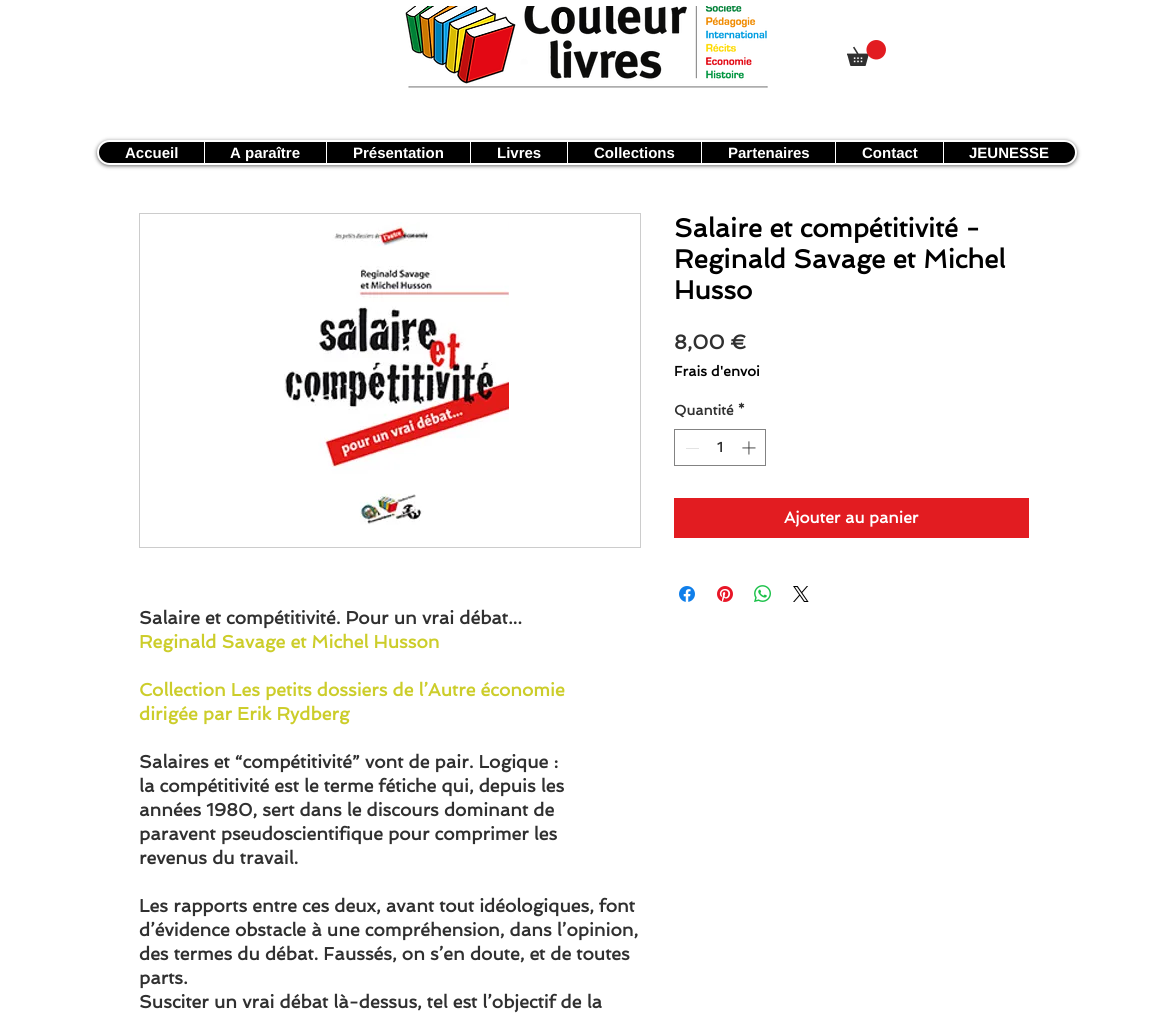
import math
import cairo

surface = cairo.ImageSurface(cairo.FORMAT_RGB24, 1168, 1013)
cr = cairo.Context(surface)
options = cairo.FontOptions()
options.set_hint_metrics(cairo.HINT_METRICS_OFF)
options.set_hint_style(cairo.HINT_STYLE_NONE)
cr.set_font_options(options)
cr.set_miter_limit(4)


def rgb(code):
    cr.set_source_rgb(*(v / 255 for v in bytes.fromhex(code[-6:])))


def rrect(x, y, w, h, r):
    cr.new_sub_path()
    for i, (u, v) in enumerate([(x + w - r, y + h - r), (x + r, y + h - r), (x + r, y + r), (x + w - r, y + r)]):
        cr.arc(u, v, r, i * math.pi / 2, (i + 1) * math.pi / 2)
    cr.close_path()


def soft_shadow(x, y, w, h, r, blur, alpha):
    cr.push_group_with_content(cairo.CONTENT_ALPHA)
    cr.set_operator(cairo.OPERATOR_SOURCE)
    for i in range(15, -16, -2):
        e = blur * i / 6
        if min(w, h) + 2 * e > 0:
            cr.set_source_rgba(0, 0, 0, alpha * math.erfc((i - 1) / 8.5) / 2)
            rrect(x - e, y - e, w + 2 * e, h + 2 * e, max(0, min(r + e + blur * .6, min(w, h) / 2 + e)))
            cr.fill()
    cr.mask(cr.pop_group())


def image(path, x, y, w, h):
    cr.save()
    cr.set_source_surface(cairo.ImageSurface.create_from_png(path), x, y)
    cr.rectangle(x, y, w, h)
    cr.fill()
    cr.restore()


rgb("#ffffff")
cr.paint()
image("img/1.png", 405, 6, 363, 82)
image("img/2.png", 847, 40, 39, 26)
rgb("#000000")
soft_shadow(97, 141, 980, 25, 12.5, 2, 0.6)
rgb("#000000")
rrect(98, 141, 978, 23, 11.5)
cr.fill_preserve()
rgb("#ffffff")
cr.stroke()
for x, y, w, h, color in [
    (204, 142, 1, 21, "#ffffff"),
    (326, 142, 1, 21, "#ffffff"),
    (470, 142, 1, 21, "#ffffff"),
    (567, 142, 1, 21, "#ffffff"),
    (701, 142, 1, 21, "#ffffff"),
    (835, 142, 1, 21, "#ffffff"),
    (943, 142, 1, 21, "#ffffff"),
]:
    rgb(color)
    cr.rectangle(x, y, w, h)
    cr.fill()
cr.rectangle(674.5, 429.5, 91, 36)
rgb("#838383")
cr.set_line_width(1)
cr.stroke()
rgb("#e3e3e3")
cr.rectangle(686, 448, 13, 1)
cr.fill()
image("img/3.png", 742, 441, 14, 14)
rgb("#e21c21")
cr.rectangle(674, 498, 355, 40)
cr.fill()
image("img/4.png", 679, 586, 16, 16)
image("img/5.png", 717, 586, 16, 16)
image("img/6.png", 754, 585, 17, 17)
image("img/7.png", 793, 586, 16, 16)
cr.rectangle(139.5, 213.5, 501, 334)
rgb("#cccccc")
cr.stroke()
image("img/8.png", 284, 222, 225, 303)
cr.select_font_face("Liberation Sans", cairo.FONT_SLANT_NORMAL, cairo.FONT_WEIGHT_BOLD)
cr.set_font_size(15)
rgb("#ffffff")
for x, y, s in [
    (125, 158, "Accueil"),
    (230, 158, "A paraître"),
    (353, 158, "Présentation"),
    (497, 158, "Livres"),
    (594, 158, "Collections"),
    (728, 158, "Partenaires"),
    (862, 158, "Contact"),
    (969, 158, "JEUNESSE"),
]:
    cr.move_to(x, y)
    cr.show_text(s)
cr.select_font_face("Spinnaker", cairo.FONT_SLANT_NORMAL, cairo.FONT_WEIGHT_BOLD)
cr.set_font_size(26)
rgb("#000000")
for x, y, s in [
    (674, 237, "Salaire et compétitivité -"),
    (674, 268, "Reginald Savage et Michel"),
    (674, 299, "Husso"),
]:
    cr.move_to(x, y)
    cr.show_text(s)
cr.set_font_size(20)
rgb("#303030")
cr.move_to(674, 349)
cr.show_text("8,00 €")
cr.set_font_size(14)
rgb("#000000")
cr.move_to(674, 376)
cr.show_text("Frais d'envoi")
rgb("#303030")
cr.move_to(674, 415)
cr.show_text("Quantité *")
cr.move_to(717, 452)
cr.show_text("1")
cr.set_font_size(16)
rgb("#ffffff")
cr.move_to(784, 523)
cr.show_text("Ajouter au panier")
cr.set_font_size(18)
rgb("#303030")
cr.move_to(139, 624)
cr.show_text("Salaire et compétitivité. Pour un vrai débat...")
rgb("#cccd2a")
for x, y, s in [
    (139, 648, "Reginald Savage et Michel Husson"),
    (139, 696, "Collection Les petits dossiers de l’Autre économie"),
    (139, 720, "dirigée par Erik Rydberg"),
]:
    cr.move_to(x, y)
    cr.show_text(s)
rgb("#303030")
for x, y, s in [
    (139, 768, "Salaires et “compétitivité” vont de pair. Logique :"),
    (139, 792, "la compétitivité est le terme fétiche qui, depuis les"),
    (139, 816, "années 1980, sert dans le discours dominant de"),
    (139, 840, "paravent pseudoscientifique pour comprimer les"),
    (139, 864, "revenus du travail."),
    (139, 912, "Les rapports entre ces deux, avant tout idéologiques, font"),
    (139, 936, "d’évidence obstacle à une compréhension, dans l’opinion,"),
    (139, 960, "des termes du débat. Faussés, on s’en doute, et de toutes"),
    (139, 984, "parts."),
    (139, 1008, "Susciter un vrai débat là-dessus, tel est l’objectif de la"),
]:
    cr.move_to(x, y)
    cr.show_text(s)
surface.write_to_png("page.png")
